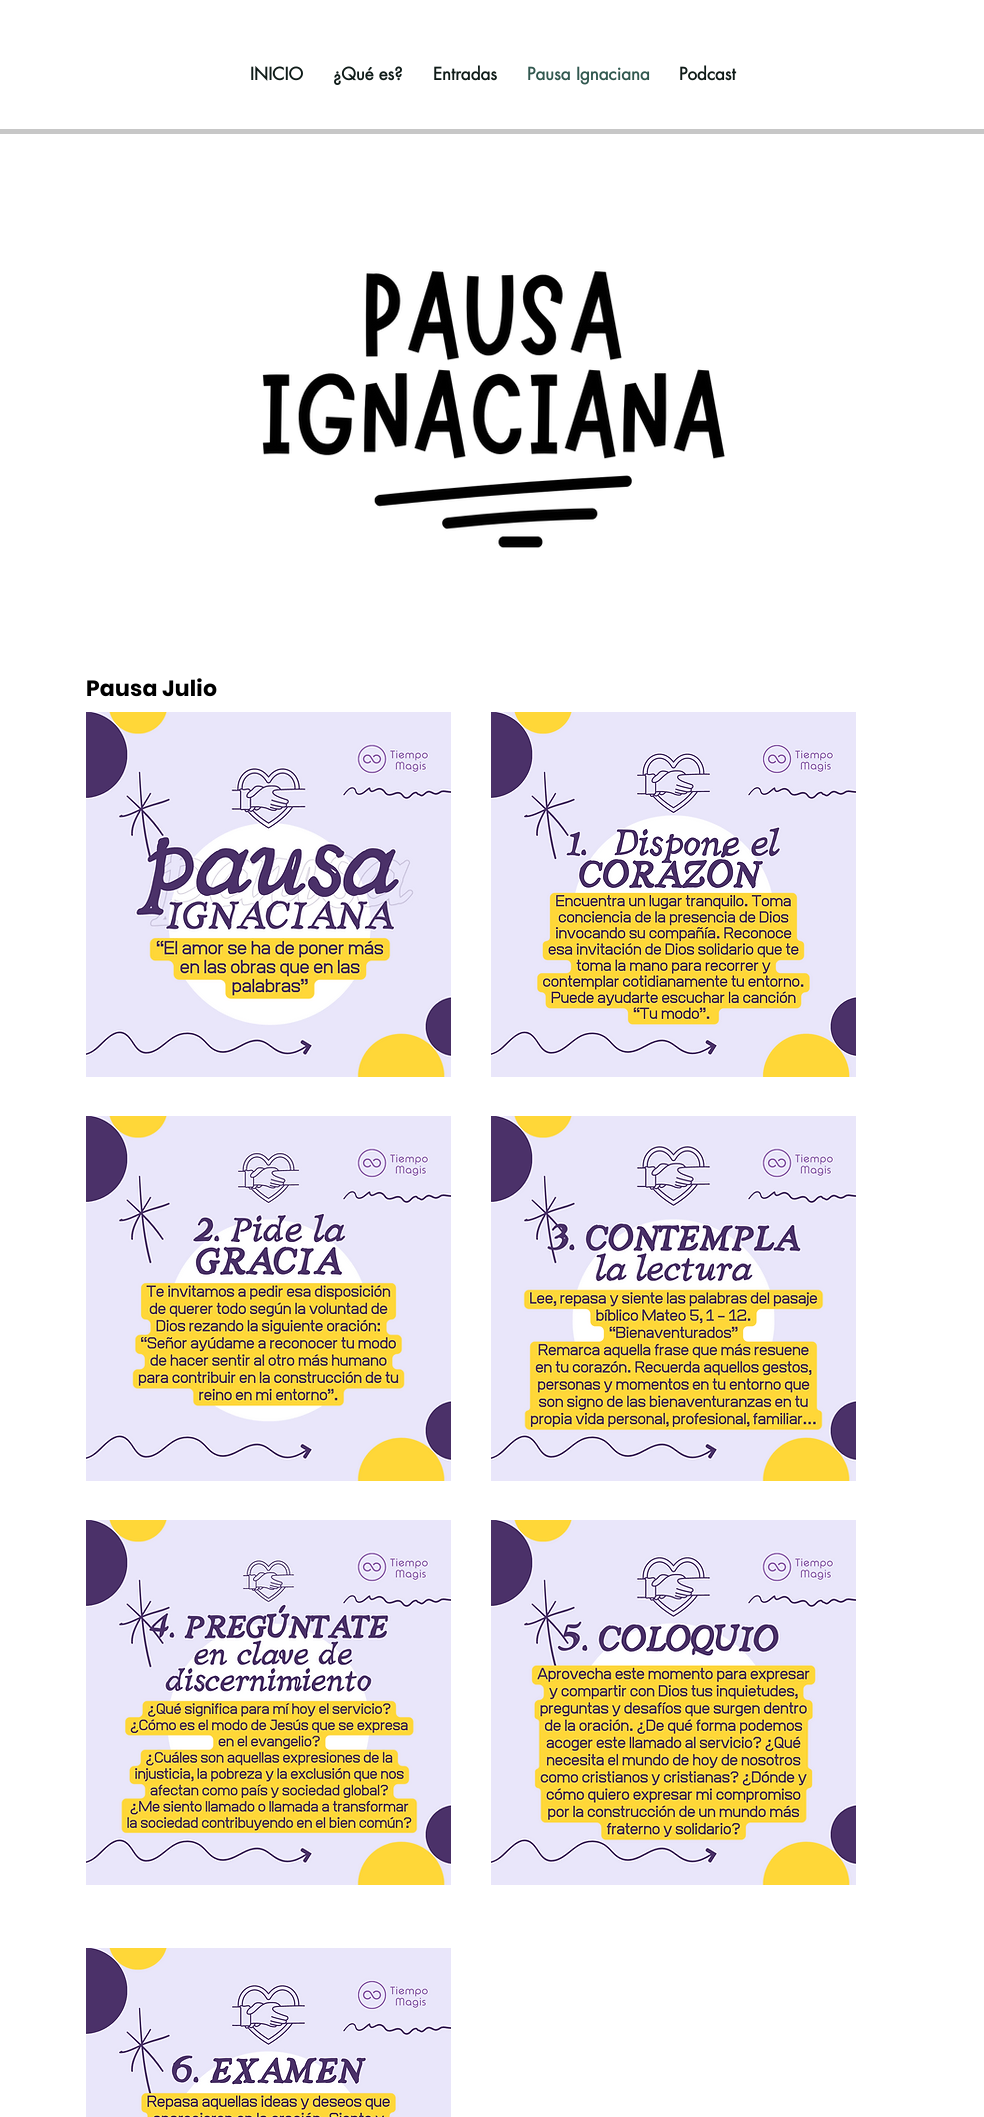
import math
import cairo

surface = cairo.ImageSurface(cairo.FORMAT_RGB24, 984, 2117)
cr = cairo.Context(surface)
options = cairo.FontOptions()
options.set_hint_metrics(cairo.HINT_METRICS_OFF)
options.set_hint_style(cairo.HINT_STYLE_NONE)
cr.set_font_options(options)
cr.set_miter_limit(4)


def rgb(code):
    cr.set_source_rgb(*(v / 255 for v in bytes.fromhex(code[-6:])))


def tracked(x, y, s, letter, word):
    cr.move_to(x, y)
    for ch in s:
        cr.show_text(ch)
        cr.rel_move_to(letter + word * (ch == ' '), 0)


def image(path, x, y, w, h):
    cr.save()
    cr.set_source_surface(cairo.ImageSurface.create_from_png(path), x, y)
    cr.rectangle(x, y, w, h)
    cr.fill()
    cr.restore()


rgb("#ffffff")
cr.paint()
rgb("#c7c7c7")
cr.rectangle(0, 129, 984, 5)
cr.fill()
image("img/1.png", 262, 269, 463, 279)
image("img/2.png", 86, 712, 365, 365)
image("img/3.png", 491, 712, 365, 365)
image("img/4.png", 86, 1116, 365, 365)
image("img/5.png", 491, 1116, 365, 365)
image("img/6.png", 86, 1520, 365, 365)
image("img/7.png", 491, 1520, 365, 365)
image("img/8.png", 86, 1948, 365, 169)
cr.select_font_face("futura", cairo.FONT_SLANT_NORMAL, cairo.FONT_WEIGHT_BOLD)
cr.set_font_size(17)
rgb("#0e1a17")
for x, y, s in [
    (250, 80, "INICIO"),
    (333, 80, "¿Qué es?"),
    (433, 80, "Entradas"),
]:
    cr.move_to(x, y)
    cr.show_text(s)
rgb("#30574e")
cr.move_to(527, 80)
cr.show_text("Pausa Ignaciana")
rgb("#0e1a17")
cr.move_to(679, 80)
cr.show_text("Podcast")
cr.select_font_face("Poppins", cairo.FONT_SLANT_NORMAL, cairo.FONT_WEIGHT_BOLD)
cr.set_font_size(22)
rgb("#000000")
tracked(86, 696, "Pausa Julio", 0.25, 0)
surface.write_to_png("page.png")
